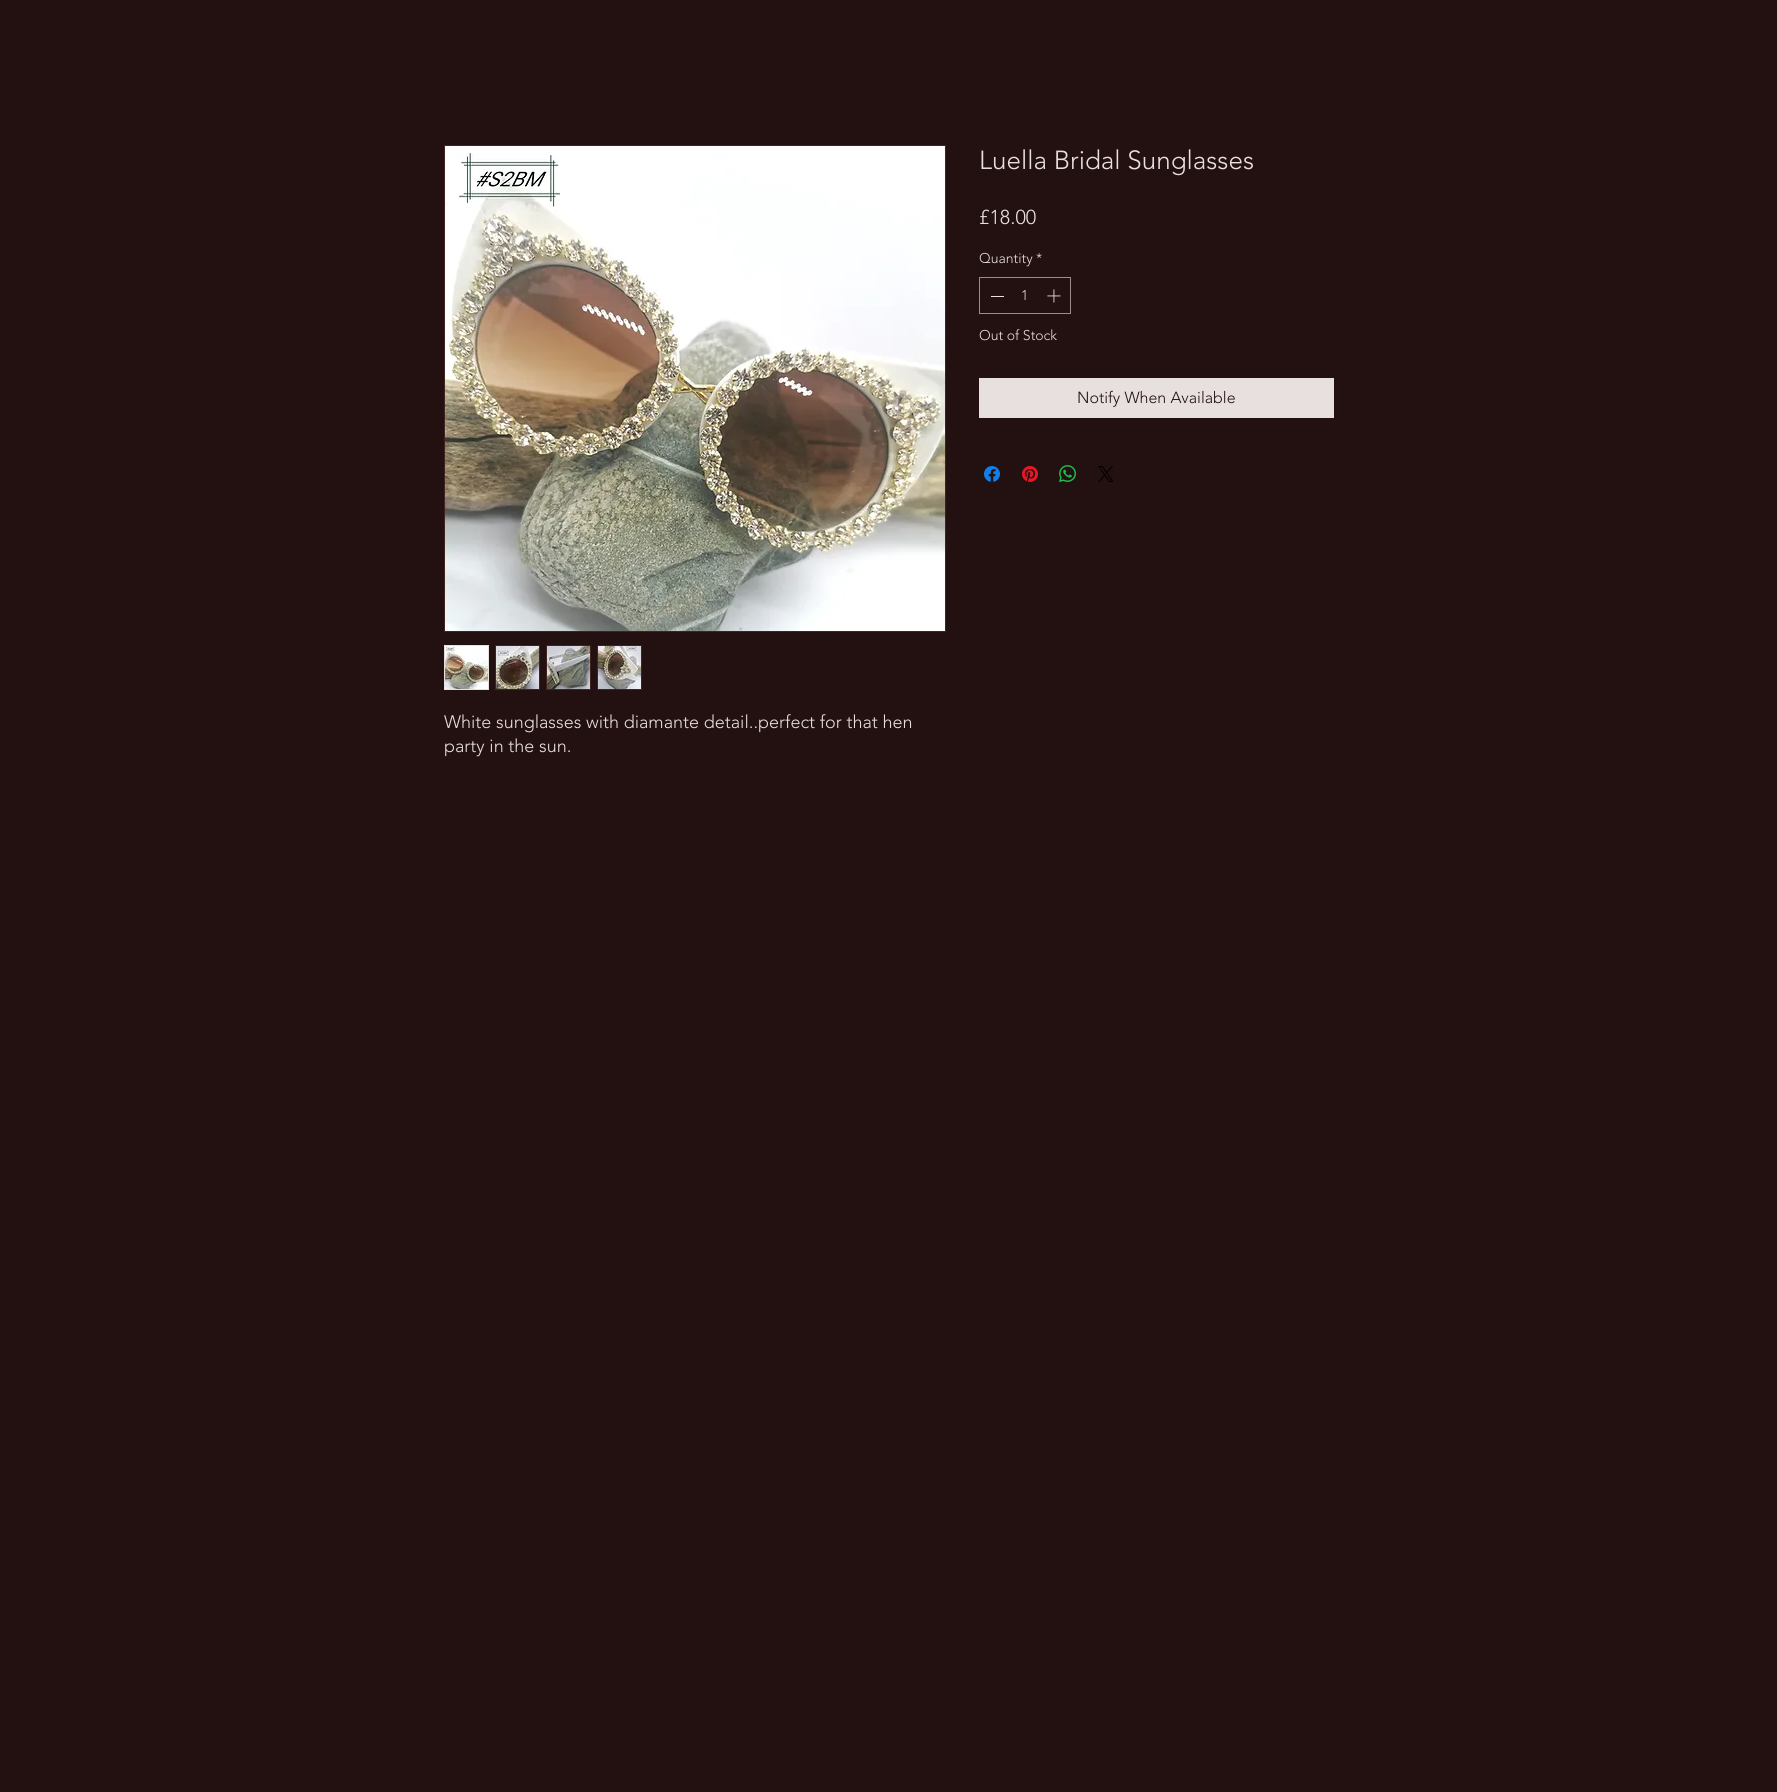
import math
import cairo

surface = cairo.ImageSurface(cairo.FORMAT_RGB24, 1777, 1792)
cr = cairo.Context(surface)
options = cairo.FontOptions()
options.set_hint_metrics(cairo.HINT_METRICS_OFF)
options.set_hint_style(cairo.HINT_STYLE_NONE)
cr.set_font_options(options)
cr.set_miter_limit(4)


def rgb(code):
    cr.set_source_rgb(*(v / 255 for v in bytes.fromhex(code[-6:])))


def image(path, x, y, w, h):
    cr.save()
    cr.set_source_surface(cairo.ImageSurface.create_from_png(path), x, y)
    cr.rectangle(x, y, w, h)
    cr.fill()
    cr.restore()


rgb("#231111")
cr.paint()
cr.rectangle(979.5, 277.5, 91, 36)
rgb("#998d8d")
cr.set_line_width(1)
cr.stroke()
rgb("#e8dfdf")
cr.rectangle(991, 296, 13, 1)
cr.fill()
image("img/1.png", 1047, 289, 14, 14)
cr.rectangle(979, 378, 355, 40)
cr.fill()
image("img/2.png", 984, 466, 16, 16)
image("img/3.png", 1022, 466, 16, 16)
image("img/4.png", 1059, 465, 17, 17)
image("img/5.png", 1098, 466, 16, 16)
cr.rectangle(444.5, 145.5, 501, 486)
rgb("#452222")
cr.stroke()
image("img/6.png", 445, 146, 500, 485)
cr.rectangle(444.5, 645.5, 44, 44)
rgb("#e8dfdf")
cr.stroke()
image("img/7.png", 445, 646, 43, 43)
cr.rectangle(495.5, 645.5, 44, 44)
rgb("#452222")
cr.stroke()
image("img/8.png", 496, 646, 43, 43)
cr.rectangle(546.5, 645.5, 44, 44)
cr.stroke()
image("img/9.png", 547, 646, 43, 43)
cr.rectangle(597.5, 645.5, 44, 44)
cr.stroke()
image("img/10.png", 598, 646, 43, 43)
cr.select_font_face("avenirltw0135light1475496 Light")
cr.set_font_size(26)
rgb("#e8dfdf")
cr.move_to(979, 169)
cr.show_text("Luella Bridal Sunglasses")
cr.set_font_size(20)
cr.move_to(979, 224)
cr.show_text("£18.00")
cr.set_font_size(14)
for x, y, s in [
    (979, 263, "Quantity"),
    (1036, 263, "*"),
    (1021, 300, "1"),
    (979, 340, "Out of Stock"),
]:
    cr.move_to(x, y)
    cr.show_text(s)
cr.set_font_size(16)
rgb("#231111")
cr.move_to(1077, 403)
cr.show_text("Notify When Available")
cr.set_font_size(18)
rgb("#e8dfdf")
cr.move_to(444, 728)
cr.show_text("White sunglasses with diamante detail..perfect for that hen")
cr.move_to(444, 752)
cr.show_text("party in the sun.")
surface.write_to_png("page.png")
